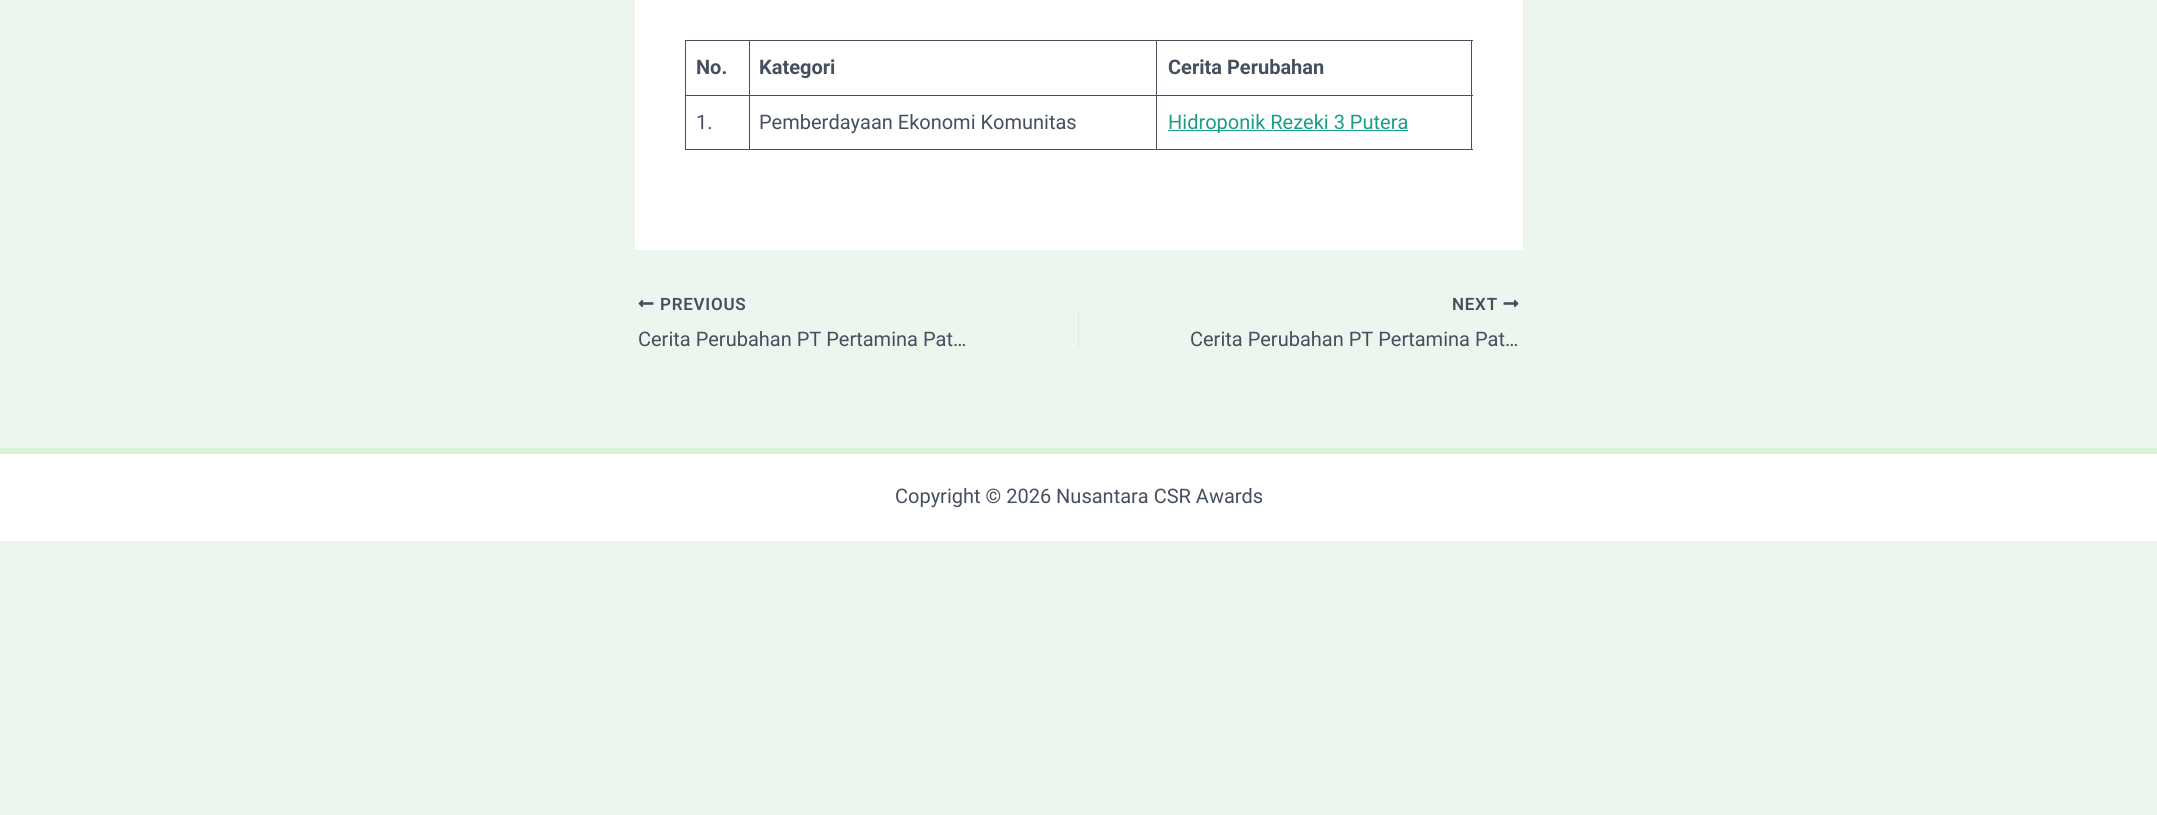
import math
import cairo

surface = cairo.ImageSurface(cairo.FORMAT_RGB24, 2157, 815)
cr = cairo.Context(surface)
options = cairo.FontOptions()
options.set_hint_metrics(cairo.HINT_METRICS_OFF)
options.set_hint_style(cairo.HINT_STYLE_NONE)
cr.set_font_options(options)
cr.set_miter_limit(4)


def rgb(code):
    cr.set_source_rgb(*(v / 255 for v in bytes.fromhex(code[-6:])))


def tracked(x, y, s, letter, word):
    cr.move_to(x, y)
    for ch in s:
        cr.show_text(ch)
        cr.rel_move_to(letter + word * (ch == ' '), 0)


def image(path, x, y, w, h):
    cr.save()
    cr.set_source_surface(cairo.ImageSurface.create_from_png(path), x, y)
    cr.rectangle(x, y, w, h)
    cr.fill()
    cr.restore()


rgb("#edf6ee")
cr.paint()
for x, y, w, h, color in [
    (635, 0, 888, 250, "#ffffff"),
    (1156, 40, 317, 1, "#454f5e"),
    (1156, 95, 317, 1, "#454f5e"),
    (1471, 95, 1, 55, "#454f5e"),
    (1156, 149, 317, 1, "#454f5e"),
    (1156, 95, 1, 55, "#454f5e"),
    (749, 95, 409, 1, "#454f5e"),
    (1156, 40, 1, 56, "#454f5e"),
    (749, 40, 409, 1, "#454f5e"),
    (749, 149, 409, 1, "#454f5e"),
    (749, 95, 1, 55, "#454f5e"),
    (685, 95, 65, 1, "#454f5e"),
    (749, 40, 1, 56, "#454f5e"),
    (685, 40, 65, 1, "#454f5e"),
    (685, 149, 65, 1, "#454f5e"),
    (685, 95, 1, 55, "#454f5e"),
    (685, 40, 1, 56, "#454f5e"),
    (1471, 40, 1, 56, "#454f5e"),
    (1168, 130, 240, 1, "#1b9c85"),
]:
    rgb(color)
    cr.rectangle(x, y, w, h)
    cr.fill()
image("img/1.png", 638, 299, 16, 9)
rgb("#e1e8ed")
cr.rectangle(1078, 310, 1, 38)
cr.fill()
image("img/2.png", 1503, 299, 16, 9)
rgb("#ffffff")
cr.rectangle(0, 454, 2157, 87)
cr.fill()
rgb("#d4f3d7")
cr.rectangle(0, 448, 2157, 6)
cr.fill()
cr.select_font_face("Roboto", cairo.FONT_SLANT_NORMAL, cairo.FONT_WEIGHT_BOLD)
cr.set_font_size(20)
rgb("#454f5e")
for x, y, s in [
    (696, 74, "No."),
    (759, 74, "Kategori"),
    (1168, 74, "Cerita Perubahan"),
]:
    cr.move_to(x, y)
    cr.show_text(s)
cr.select_font_face("Roboto")
cr.move_to(696, 129)
cr.show_text("1.")
cr.move_to(759, 129)
cr.show_text("Pemberdayaan Ekonomi Komunitas")
rgb("#1b9c85")
cr.move_to(1168, 129)
cr.show_text("Hidroponik Rezeki 3 Putera")
cr.select_font_face("Roboto SemiBold")
cr.set_font_size(17)
rgb("#454f5e")
tracked(660, 310, "PREVIOUS", 0.75, 0)
cr.select_font_face("Roboto")
cr.set_font_size(20)
cr.move_to(638, 346)
cr.show_text("Cerita Perubahan PT Pertamina Pat…")
cr.select_font_face("Roboto SemiBold")
cr.set_font_size(17)
tracked(1452, 310, "NEXT", 0.75, 0)
cr.select_font_face("Roboto")
cr.set_font_size(20)
cr.move_to(1190, 346)
cr.show_text("Cerita Perubahan PT Pertamina Pat…")
cr.move_to(895, 503)
cr.show_text("Copyright © 2026 Nusantara CSR Awards")
surface.write_to_png("page.png")
